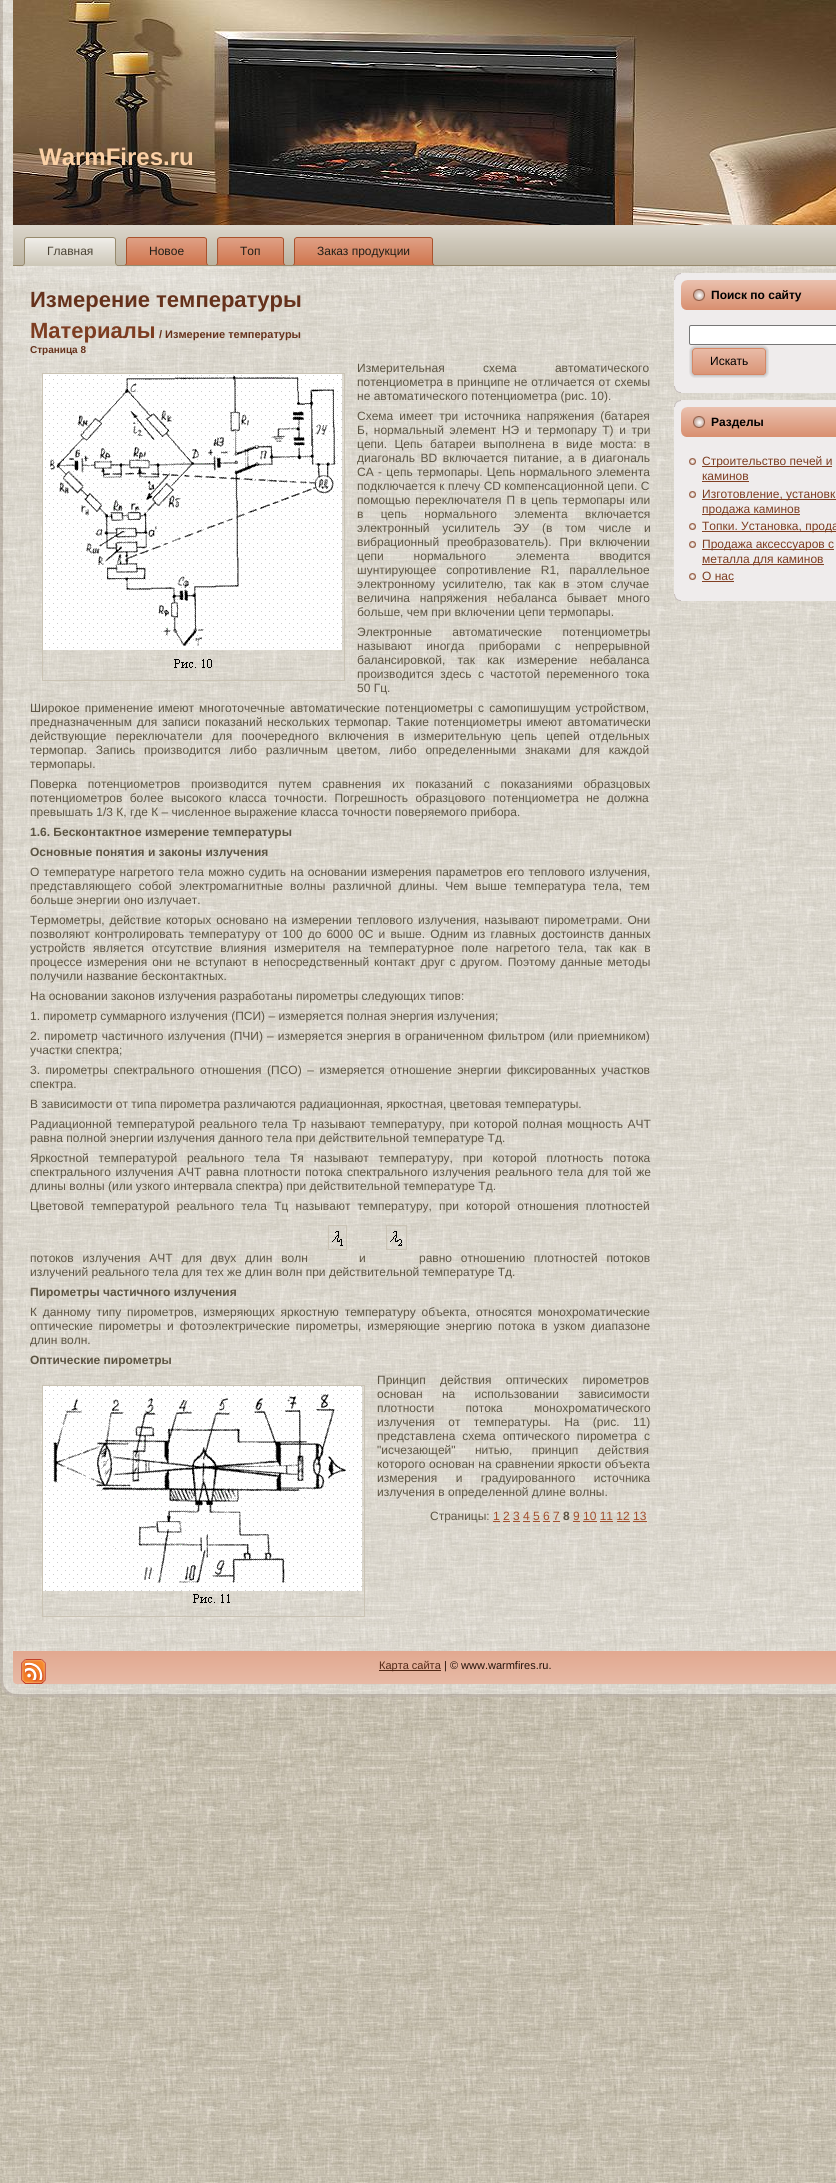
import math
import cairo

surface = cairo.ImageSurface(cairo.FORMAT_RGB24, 836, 2183)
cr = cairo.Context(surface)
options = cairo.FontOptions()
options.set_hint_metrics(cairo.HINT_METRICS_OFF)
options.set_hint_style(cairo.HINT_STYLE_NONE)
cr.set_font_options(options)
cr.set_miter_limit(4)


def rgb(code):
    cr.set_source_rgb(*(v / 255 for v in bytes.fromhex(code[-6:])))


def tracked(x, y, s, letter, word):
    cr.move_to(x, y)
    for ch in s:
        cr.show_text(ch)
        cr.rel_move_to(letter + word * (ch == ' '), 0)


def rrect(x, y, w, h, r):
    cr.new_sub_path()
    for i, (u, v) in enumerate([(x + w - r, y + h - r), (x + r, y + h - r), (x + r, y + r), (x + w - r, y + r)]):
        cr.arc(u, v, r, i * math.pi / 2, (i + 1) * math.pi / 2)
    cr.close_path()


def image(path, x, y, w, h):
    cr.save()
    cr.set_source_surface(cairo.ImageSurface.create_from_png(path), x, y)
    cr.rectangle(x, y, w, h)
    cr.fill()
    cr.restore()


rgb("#ffffff")
cr.paint()
image("img/1.png", 0, 0, 836, 2183)
image("img/2.png", 1, 1, 419, 401)
image("img/3.png", 0, 0, 13, 4)
image("img/4.png", 0, 4, 17, 1676)
image("img/5.png", 13, 0, 823, 225)
image("img/6.png", 13, 225, 823, 41)
image("img/7.png", 21, 237, 91, 29)
image("img/8.png", 112, 237, 7, 29)
image("img/9.png", 124, 237, 79, 28)
image("img/10.png", 203, 237, 6, 28)
image("img/11.png", 215, 237, 65, 28)
image("img/10.png", 280, 237, 6, 28)
image("img/12.png", 292, 237, 137, 28)
image("img/10.png", 429, 237, 6, 28)
cr.set_source_rgba(0.98, 0.98, 0.98, 0.4)
cr.rectangle(17, 266, 819, 1385)
cr.fill()
cr.rectangle(42.5, 373.5, 302, 307)
rgb("#cac3b4")
cr.set_line_width(1)
cr.stroke()
image("img/13.png", 43, 374, 299, 294)
cr.rectangle(328.5, 1225.5, 18, 24)
cr.stroke()
cr.rectangle(386.5, 1225.5, 20, 24)
cr.stroke()
image("img/14.png", 332, 1231, 11, 15)
image("img/15.png", 390, 1231, 12, 15)
cr.rectangle(42.5, 1385.5, 322, 231)
cr.stroke()
image("img/16.png", 43, 1386, 319, 217)
for x, y, w, h, color in [
    (493, 1521, 7, 1, "#a14e2b"),
    (573, 1521, 7, 1, "#a14e2b"),
    (503, 1521, 7, 1, "#a14e2b"),
    (513, 1521, 7, 1, "#a14e2b"),
    (523, 1521, 7, 1, "#a14e2b"),
    (533, 1521, 7, 1, "#a14e2b"),
    (543, 1521, 7, 1, "#a14e2b"),
    (553, 1521, 7, 1, "#a14e2b"),
    (583, 1521, 14, 1, "#a14e2b"),
    (600, 1521, 13, 1, "#a14e2b"),
    (617, 1521, 13, 1, "#a14e2b"),
    (633, 1521, 14, 1, "#a14e2b"),
]:
    rgb(color)
    cr.rectangle(x, y, w, h)
    cr.fill()
image("img/17.png", 674, 273, 7, 7)
rgb("#efecec")
cr.rectangle(681, 273, 155, 7)
cr.fill()
cr.rectangle(674, 280, 162, 106)
cr.fill()
image("img/18.png", 681, 280, 155, 30)
image("img/19.png", 693, 289, 12, 12)
rgb("#ffffff")
rrect(689.5, 325.5, 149, 19, 1.5)
cr.fill_preserve()
rgb("#767676")
cr.stroke()
image("img/20.png", 689, 345, 70, 33)
image("img/21.png", 759, 345, 10, 33)
image("img/22.png", 674, 386, 7, 7)
rgb("#efecec")
cr.rectangle(681, 386, 155, 7)
cr.fill()
image("img/23.png", 674, 400, 7, 7)
cr.rectangle(681, 400, 155, 7)
cr.fill()
cr.rectangle(674, 407, 162, 187)
cr.fill()
image("img/18.png", 681, 407, 155, 30)
image("img/19.png", 693, 416, 12, 12)
image("img/24.png", 689, 458, 7, 7)
rgb("#813f22")
cr.rectangle(702, 466, 130, 1)
cr.fill()
cr.rectangle(702, 481, 47, 1)
cr.fill()
image("img/24.png", 689, 491, 7, 7)
cr.rectangle(702, 499, 134, 1)
cr.fill()
cr.rectangle(702, 514, 98, 1)
cr.fill()
image("img/24.png", 689, 523, 7, 7)
cr.rectangle(702, 531, 134, 1)
cr.fill()
image("img/24.png", 689, 541, 7, 7)
cr.rectangle(702, 549, 132, 1)
cr.fill()
cr.rectangle(702, 564, 122, 1)
cr.fill()
image("img/24.png", 689, 573, 7, 7)
cr.rectangle(702, 581, 32, 1)
cr.fill()
image("img/25.png", 674, 594, 7, 7)
rgb("#efecec")
cr.rectangle(681, 594, 155, 7)
cr.fill()
image("img/28.png", 0, 1680, 17, 17)
image("img/26.png", 13, 1651, 823, 33)
image("img/27.png", 21, 1659, 25, 25)
rgb("#512715")
cr.rectangle(379, 1670, 62, 1)
cr.fill()
image("img/29.png", 17, 1684, 819, 13)
cr.select_font_face("Liberation Sans", cairo.FONT_SLANT_NORMAL, cairo.FONT_WEIGHT_BOLD)
cr.set_font_size(24)
rgb("#fcd1a6")
cr.move_to(39, 165)
cr.show_text("WarmFires.ru")
cr.select_font_face("Liberation Sans")
cr.set_font_size(12)
rgb("#4b4435")
cr.move_to(47, 255)
cr.show_text("Главная")
rgb("#211e17")
for x, y, s in [
    (149, 255, "Новое"),
    (240, 255, "Топ"),
    (317, 255, "Заказ продукции"),
]:
    cr.move_to(x, y)
    cr.show_text(s)
cr.select_font_face("Liberation Sans", cairo.FONT_SLANT_NORMAL, cairo.FONT_WEIGHT_BOLD)
cr.set_font_size(22)
rgb("#65311b")
cr.move_to(30, 307)
cr.show_text("Измерение температуры")
rgb("#7d3d21")
cr.move_to(30, 338)
cr.show_text("Материалы")
cr.set_font_size(11)
rgb("#65311b")
cr.move_to(159, 338)
cr.show_text("/ Измерение температуры")
cr.set_font_size(10)
cr.move_to(30, 353)
cr.show_text("Страница 8")
cr.select_font_face("Liberation Sans")
cr.set_font_size(12)
rgb("#5c5442")
tracked(357, 372, "Измерительная схема автоматического", 0, 35)
tracked(357, 386, "потенциометра в принципе не отличается от схемы", 0, 0.5)
cr.move_to(357, 400)
cr.show_text("не автоматического потенциометра (рис. 10).")
tracked(357, 420, "Схема имеет три источника напряжения (батарея", 0, 2.75)
tracked(357, 434, "Б, нормальный элемент НЭ и термопару Т) и три", 0, 2.25)
tracked(357, 448, "цепи. Цепь батареи выполнена в виде моста: в", 0, 4)
tracked(357, 462, "диагональ BD включается питание, а в диагональ", 0, 2.25)
tracked(357, 476, "CA - цепь термопары. Цепь нормального элемента", 0, 1)
cr.move_to(357, 490)
cr.show_text("подключается к плечу CD компенсационной цепи. С")
tracked(357, 504, "помощью переключателя П в цепь термопары или", 0, 1.6)
tracked(357, 518, "в цепь нормального элемента включается", 0, 14)
tracked(357, 532, "электронный усилитель ЭУ (в том числе и", 0, 9.5)
tracked(357, 546, "вибрационный преобразователь). При включении", 0, 4.5)
tracked(357, 560, "цепи нормального элемента вводится", 0, 26.5)
tracked(357, 574, "шунтирующее сопротивление R1, параллельное", 0, 6.5)
tracked(357, 588, "электронному усилителю, так как в этом случае", 0, 4)
tracked(357, 602, "величина напряжения небаланса бывает много", 0, 6.5)
cr.move_to(357, 616)
cr.show_text("больше, чем при включении цепи термопары.")
tracked(357, 636, "Электронные автоматические потенциометры", 0, 17)
tracked(357, 650, "называют иногда приборами с непрерывной", 0, 11)
tracked(357, 664, "балансировкой, так как измерение небаланса", 0, 9)
tracked(357, 678, "производится здесь с частотой переменного тока", 0, 3)
cr.move_to(357, 692)
cr.show_text("50 Гц.")
tracked(30, 712, "Широкое применение имеют многоточечные автоматические потенциометры с самопишущим устройством,", 0, 1.75)
tracked(30, 726, "предназначенным для записи показаний нескольких термопар. Такие потенциометры имеют автоматически", 0, 1.5)
tracked(30, 740, "действующие переключатели для поочередного включения в измерительную цепь цепей отдельных", 0, 6)
tracked(30, 754, "термопар. Запись производится либо различным цветом, либо определенными знаками для каждой", 0, 5.5)
cr.move_to(30, 768)
cr.show_text("термопары.")
tracked(30, 788, "Поверка потенциометров производится путем сравнения их показаний с показаниями образцовых", 0, 7.5)
tracked(30, 802, "потенциометров более высокого класса точности. Погрешность образцового потенциометра не должна", 0, 4)
cr.move_to(30, 816)
cr.show_text("превышать 1/3 К, где К – численное выражение класса точности поверяемого прибора.")
cr.select_font_face("Liberation Sans", cairo.FONT_SLANT_NORMAL, cairo.FONT_WEIGHT_BOLD)
cr.move_to(30, 836)
cr.show_text("1.6. Бесконтактное измерение температуры")
cr.move_to(30, 856)
cr.show_text("Основные понятия и законы излучения")
cr.select_font_face("Liberation Sans")
tracked(30, 876, "О температуре нагретого тела можно судить на основании измерения параметров его теплового излучения,", 0, 0.9)
tracked(30, 890, "представляющего собой электромагнитные волны различной длины. Чем выше температура тела, тем", 0, 3.9)
cr.move_to(30, 904)
cr.show_text("больше энергии оно излучает.")
tracked(30, 924, "Термометры, действие которых основано на измерении теплового излучения, называют пирометрами. Они", 0, 1.5)
tracked(30, 938, "позволяют контролировать температуру от 100 до 6000 0С и выше. Одним из главных достоинств данных", 0, 1.75)
tracked(30, 952, "устройств является отсутствие влияния измерителя на температурное поле нагретого тела, так как в", 0, 4.25)
tracked(30, 966, "процессе измерения они не вступают в непосредственный контакт друг с другом. Поэтому данные методы", 0, 1.6)
for x, y, s in [
    (30, 980, "получили название бесконтактных."),
    (30, 1000, "На основании законов излучения разработаны пирометры следующих типов:"),
    (30, 1020, "1. пирометр суммарного излучения (ПСИ) – измеряется полная энергия излучения;"),
]:
    cr.move_to(x, y)
    cr.show_text(s)
tracked(30, 1040, "2. пирометр частичного излучения (ПЧИ) – измеряется энергия в ограниченном фильтром (или приемником)", 0, 0.75)
cr.move_to(30, 1054)
cr.show_text("участки спектра;")
tracked(30, 1074, "3. пирометры спектрального отношения (ПСО) – измеряется отношение энергии фиксированных участков", 0, 2.25)
cr.move_to(30, 1088)
cr.show_text("спектра.")
cr.move_to(30, 1108)
cr.show_text("В зависимости от типа пирометра различаются радиационная, яркостная, цветовая температуры.")
tracked(30, 1128, "Радиационной температурой реального тела Тр называют температуру, при которой полная мощность АЧТ", 0, 1.25)
cr.move_to(30, 1142)
cr.show_text("равна полной энергии излучения данного тела при действительной температуре Тд.")
tracked(30, 1162, "Яркостной температурой реального тела Тя называют температуру, при которой плотность потока", 0, 6.5)
tracked(30, 1176, "спектрального излучения АЧТ равна плотности потока спектрального излучения реального тела для той же", 0, 1.25)
cr.move_to(30, 1190)
cr.show_text("длины волны (или узкого интервала спектра) при действительной температуре Тд.")
tracked(30, 1210, "Цветовой температурой реального тела Тц называют температуру, при которой отношения плотностей", 0, 3.75)
tracked(30, 1262, "потоков излучения АЧТ для двух длин волн", 0, 5.5)
cr.move_to(359, 1262)
cr.show_text("и")
tracked(419, 1262, "равно отношению плотностей потоков", 0, 5.5)
cr.move_to(30, 1276)
cr.show_text("излучений реального тела для тех же длин волн при действительной температуре Тд.")
cr.select_font_face("Liberation Sans", cairo.FONT_SLANT_NORMAL, cairo.FONT_WEIGHT_BOLD)
cr.move_to(30, 1296)
cr.show_text("Пирометры частичного излучения")
cr.select_font_face("Liberation Sans")
tracked(30, 1316, "К данному типу пирометров, измеряющих яркостную температуру объекта, относятся монохроматические", 0, 2.5)
tracked(30, 1330, "оптические пирометры и фотоэлектрические пирометры, измеряющие энергию потока в узком диапазоне", 0, 2.6)
cr.move_to(30, 1344)
cr.show_text("длин волн.")
cr.select_font_face("Liberation Sans", cairo.FONT_SLANT_NORMAL, cairo.FONT_WEIGHT_BOLD)
cr.move_to(30, 1364)
cr.show_text("Оптические пирометры")
cr.select_font_face("Liberation Sans")
tracked(377, 1384, "Принцип действия оптических пирометров", 0, 11)
tracked(377, 1398, "основан на использовании зависимости", 0, 16)
tracked(377, 1412, "плотности потока монохроматического", 0, 28)
tracked(377, 1426, "излучения от температуры. На (рис. 11)", 0, 10)
tracked(377, 1440, "представлена схема оптического пирометра с", 0, 3.5)
tracked(377, 1454, "\"исчезающей\" нитью, принцип действия", 0, 16)
tracked(377, 1468, "которого основан на сравнении яркости объекта", 0, 0.25)
tracked(377, 1482, "измерения и градуированного источника", 0, 15)
cr.move_to(377, 1496)
cr.show_text("излучения в определенной длине волны.")
cr.move_to(430, 1520)
cr.show_text("Страницы:")
rgb("#a14e2b")
cr.move_to(493, 1520)
cr.show_text("1 2 3 4 5 6 7")
cr.select_font_face("Liberation Sans", cairo.FONT_SLANT_NORMAL, cairo.FONT_WEIGHT_BOLD)
rgb("#5c5442")
cr.move_to(563, 1520)
cr.show_text("8")
cr.select_font_face("Liberation Sans")
rgb("#a14e2b")
cr.move_to(573, 1520)
cr.show_text("9 10 11 12 13")
cr.select_font_face("Liberation Sans", cairo.FONT_SLANT_NORMAL, cairo.FONT_WEIGHT_BOLD)
rgb("#000000")
cr.move_to(711, 299)
cr.show_text("Поиск по сайту")
cr.select_font_face("Liberation Sans")
cr.move_to(710, 365)
cr.show_text("Искать")
cr.select_font_face("Liberation Sans", cairo.FONT_SLANT_NORMAL, cairo.FONT_WEIGHT_BOLD)
cr.move_to(711, 426)
cr.show_text("Разделы")
cr.select_font_face("Liberation Sans")
rgb("#7d3d21")
for x, y, s in [
    (702, 465, "Строительство печей и"),
    (702, 480, "каминов"),
    (702, 498, "Изготовление, установк"),
    (702, 513, "продажа каминов"),
    (702, 530, "Топки. Установка, прода"),
    (702, 548, "Продажа аксессуаров с"),
    (702, 563, "металла для каминов"),
    (702, 580, "О нас"),
]:
    cr.move_to(x, y)
    cr.show_text(s)
cr.set_font_size(11)
rgb("#512715")
cr.move_to(379, 1669)
cr.show_text("Карта сайта")
rgb("#24120a")
cr.move_to(444, 1669)
cr.show_text("| © www.warmfires.ru.")
surface.write_to_png("page.png")
